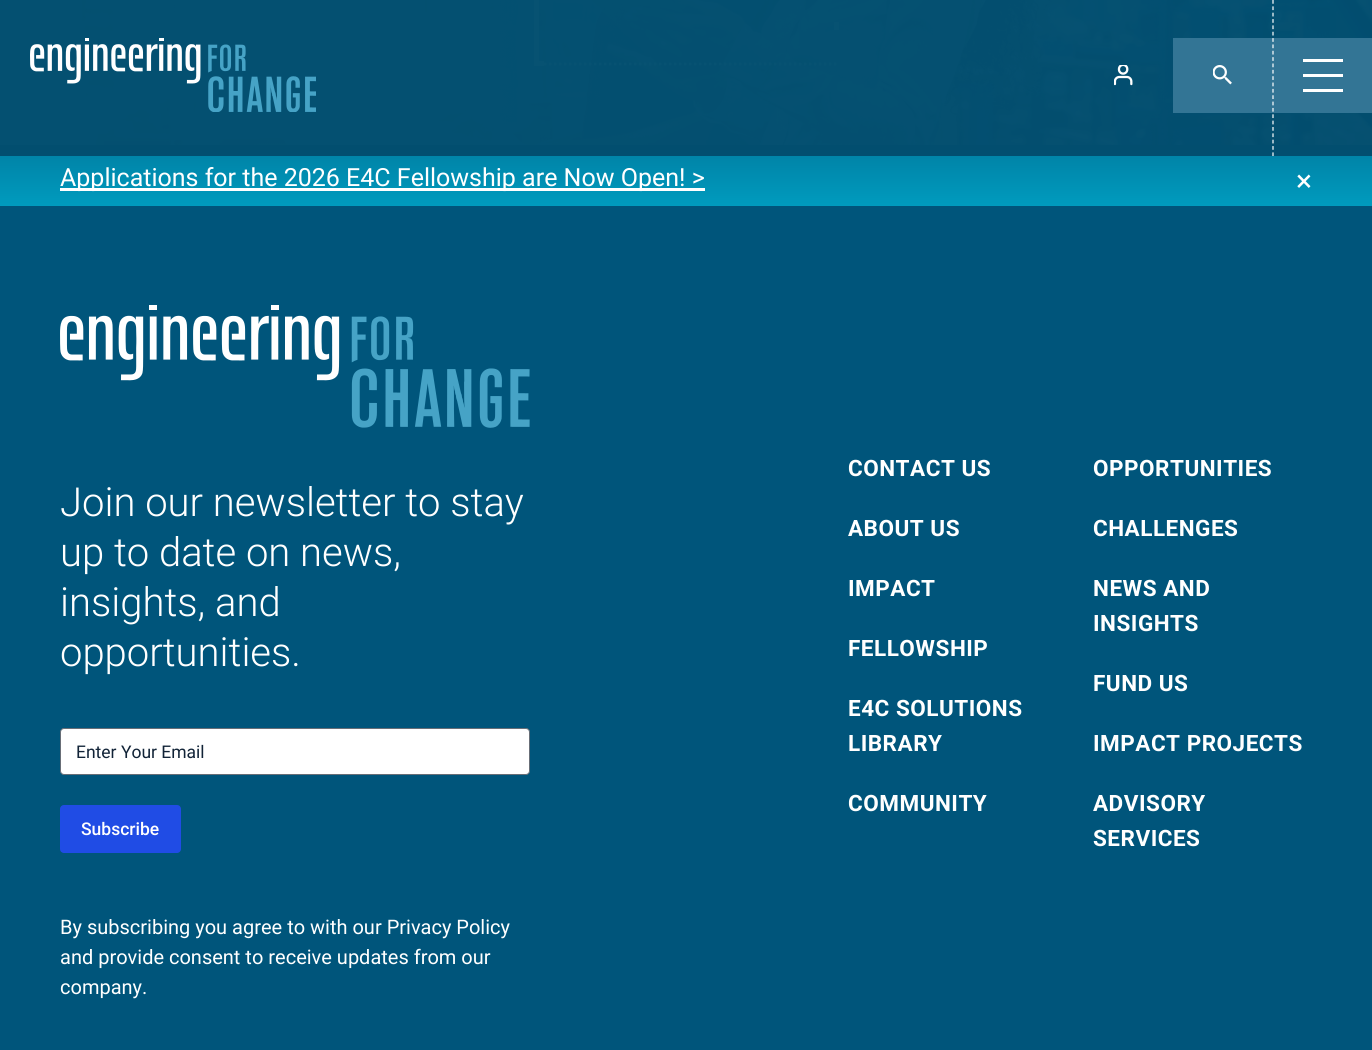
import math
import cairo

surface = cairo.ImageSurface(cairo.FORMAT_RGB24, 1372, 1050)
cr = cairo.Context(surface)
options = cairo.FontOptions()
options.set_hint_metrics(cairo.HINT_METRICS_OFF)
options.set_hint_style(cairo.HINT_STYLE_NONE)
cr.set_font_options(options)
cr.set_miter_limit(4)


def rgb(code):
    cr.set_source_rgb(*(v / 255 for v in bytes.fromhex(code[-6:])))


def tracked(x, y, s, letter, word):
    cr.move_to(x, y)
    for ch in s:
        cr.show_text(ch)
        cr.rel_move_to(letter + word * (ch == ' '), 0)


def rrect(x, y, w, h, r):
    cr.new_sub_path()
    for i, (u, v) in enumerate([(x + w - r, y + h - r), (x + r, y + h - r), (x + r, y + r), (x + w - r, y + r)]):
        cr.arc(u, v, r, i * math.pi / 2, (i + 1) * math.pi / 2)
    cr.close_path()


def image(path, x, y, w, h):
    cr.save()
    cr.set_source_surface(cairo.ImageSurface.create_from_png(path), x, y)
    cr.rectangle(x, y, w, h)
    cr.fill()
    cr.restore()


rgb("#00557b")
cr.paint()
image("img/1.png", 0, 0, 1372, 145)
cr.new_path()
cr.move_to(534, 64)
cr.line_to(839, 64)
rgb("#075272")
cr.set_line_width(2.5)
cr.set_dash([2.5, 2.5])
cr.stroke()
for x, y, w, h, color in [
    (534, 61, 10, 5, "#075272"),
    (534, 0, 5, 66, "#075272"),
    (834, 22, 5, 8, "#075272"),
    (1173, 38, 199, 75, "#337595"),
    (0, 145, 1372, 11, "#024e6f"),
]:
    rgb(color)
    cr.rectangle(x, y, w, h)
    cr.fill()
cr.new_path()
cr.move_to(1273, 0)
cr.line_to(1273, 156)
rgb("#ffffff")
cr.set_line_width(1.2)
cr.set_dash([3.75, 2.6])
cr.stroke()
for x, y, w, h, color in [
    (1303, 59, 40, 3, "#ffffff"),
    (1303, 74, 40, 3, "#ffffff"),
    (1303, 89, 40, 3, "#ffffff"),
]:
    rgb(color)
    cr.rectangle(x, y, w, h)
    cr.fill()
image("img/2.png", 30, 38, 286, 74)
image("img/3.png", 1114, 65, 19, 21)
image("img/4.png", 1213, 65, 19, 20)
gradient = cairo.LinearGradient(686, 156, 686, 206)
gradient.add_color_stop_rgba(0, 0, 0.518, 0.659, 1)
gradient.add_color_stop_rgba(1, 0, 0.608, 0.745, 1)
cr.set_source(gradient)
cr.rectangle(0, 156, 1372, 50)
cr.fill()
rgb("#ffffff")
cr.rectangle(60, 188, 645, 3)
cr.fill()
image("img/5.png", 60, 305, 470, 123)
rrect(60.5, 728.5, 469, 46, 3.5)
cr.fill_preserve()
rgb("#686e77")
cr.set_line_width(1)
cr.set_dash([])
cr.stroke()
rgb("#204ce5")
rrect(60, 805, 121, 48, 4)
cr.fill()
cr.select_font_face("Roboto")
cr.set_font_size(25)
rgb("#ffffff")
cr.move_to(60, 186)
cr.show_text("Applications for the 2026 E4C Fellowship are Now Open! >")
cr.set_font_size(30)
cr.move_to(1296, 191)
cr.show_text("×")
cr.select_font_face("Roboto Light")
cr.set_font_size(40)
for x, y, s in [
    (60, 516, "Join our newsletter to stay"),
    (60, 566, "up to date on news,"),
    (60, 616, "insights, and"),
    (60, 666, "opportunities."),
]:
    cr.move_to(x, y)
    cr.show_text(s)
cr.select_font_face("Roboto")
cr.set_font_size(17.5)
rgb("#112337")
cr.move_to(76, 758)
cr.show_text("Enter Your Email")
cr.select_font_face("Roboto Medium")
rgb("#ffffff")
cr.move_to(81, 835)
cr.show_text("Subscribe")
cr.select_font_face("Roboto")
cr.set_font_size(20)
for x, y, s in [
    (60, 934, "By subscribing you agree to with our Privacy Policy"),
    (60, 964, "and provide consent to receive updates from our"),
    (60, 994, "company."),
]:
    cr.move_to(x, y)
    cr.show_text(s)
cr.select_font_face("Roboto", cairo.FONT_SLANT_NORMAL, cairo.FONT_WEIGHT_BOLD)
cr.set_font_size(22.5)
for x, y, s in [
    (848, 476, "CONTACT US"),
    (1093, 476, "OPPORTUNITIES"),
    (848, 536, "ABOUT US"),
    (1093, 536, "CHALLENGES"),
    (848, 596, "IMPACT"),
    (1093, 596, "NEWS AND"),
    (1093, 631, "INSIGHTS"),
    (848, 656, "FELLOWSHIP"),
    (1093, 691, "FUND US"),
    (848, 716, "E4C SOLUTIONS"),
    (848, 751, "LIBRARY"),
    (1093, 751, "IMPACT PROJECTS"),
    (848, 811, "COMMUNITY"),
    (1093, 811, "ADVISORY"),
    (1093, 846, "SERVICES"),
]:
    tracked(x, y, s, 0.5, 0)
surface.write_to_png("page.png")
